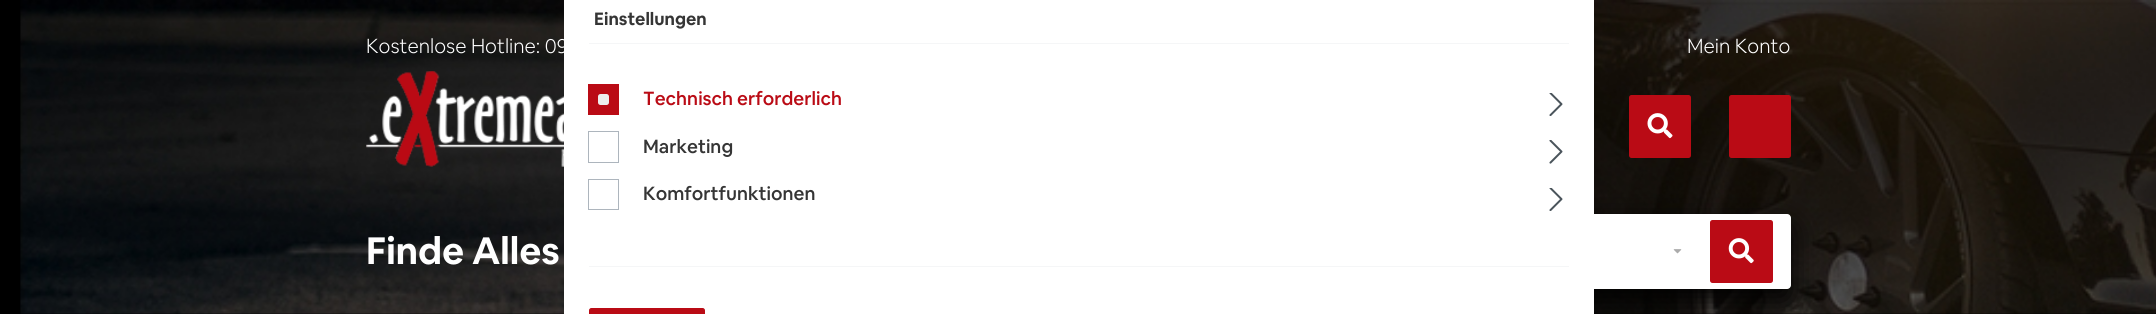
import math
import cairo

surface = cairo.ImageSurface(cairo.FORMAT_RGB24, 2156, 314)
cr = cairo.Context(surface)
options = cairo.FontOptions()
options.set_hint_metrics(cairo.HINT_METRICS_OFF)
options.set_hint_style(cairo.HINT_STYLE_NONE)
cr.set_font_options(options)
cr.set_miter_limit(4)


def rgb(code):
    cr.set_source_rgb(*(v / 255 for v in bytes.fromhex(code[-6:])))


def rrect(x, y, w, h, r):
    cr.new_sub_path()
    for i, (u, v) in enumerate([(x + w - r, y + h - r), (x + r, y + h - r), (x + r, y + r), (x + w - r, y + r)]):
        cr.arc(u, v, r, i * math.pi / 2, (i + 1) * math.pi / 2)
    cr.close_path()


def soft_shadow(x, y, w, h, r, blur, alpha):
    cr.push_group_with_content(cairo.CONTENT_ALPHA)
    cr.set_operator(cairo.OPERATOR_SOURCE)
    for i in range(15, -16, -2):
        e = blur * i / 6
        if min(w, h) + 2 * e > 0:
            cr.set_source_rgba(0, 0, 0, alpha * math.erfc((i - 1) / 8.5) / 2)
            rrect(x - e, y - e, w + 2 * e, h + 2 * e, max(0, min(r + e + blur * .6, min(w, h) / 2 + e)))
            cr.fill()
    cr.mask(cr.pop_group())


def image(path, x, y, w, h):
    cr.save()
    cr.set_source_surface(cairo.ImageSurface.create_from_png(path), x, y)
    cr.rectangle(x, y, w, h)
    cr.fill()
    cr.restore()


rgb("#000000")
cr.paint()
image("img/3.png", 20, 0, 2136, 314)
soft_shadow(1006, 226, 785, 75, 4, 15.5, 1)
rgb("#ffffff")
rrect(1006, 214, 785, 75, 4)
cr.fill()
for x, y, w, h, color in [
    (564, 0, 1030, 314, "#ffffff"),
    (589, 43, 980, 1, "#f5f6f7"),
    (589, 266, 980, 1, "#f5f6f7"),
    (588, 84, 31, 31, "#ba0b15"),
]:
    rgb(color)
    cr.rectangle(x, y, w, h)
    cr.fill()
rgb("#edeeed")
rrect(598, 94, 11, 11, 2.5)
cr.fill()
image("img/1.png", 1549, 93, 14, 23)
cr.rectangle(588.5, 131.5, 30, 31)
rgb("#adb5bd")
cr.set_line_width(1)
cr.stroke()
image("img/2.png", 1549, 140, 14, 24)
cr.rectangle(588.5, 179.5, 30, 30)
cr.stroke()
image("img/1.png", 1549, 188, 14, 23)
rgb("#ba0b15")
rrect(589.5, 308.5, 115, 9, 2)
cr.fill_preserve()
cr.stroke()
image("img/4.png", 366, 71, 198, 96)
rrect(1629, 95, 62, 63, 2.5)
cr.fill()
image("img/5.png", 1647, 113, 26, 26)
rrect(1729, 95, 62, 63, 2.5)
cr.fill()
image("img/6.png", 1673, 249, 9, 5)
rrect(1711.5, 221.5, 60, 60, 1)
cr.fill_preserve()
cr.set_line_width(3)
cr.stroke()
image("img/7.png", 1728, 238, 26, 26)
cr.select_font_face("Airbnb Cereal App", cairo.FONT_SLANT_NORMAL, cairo.FONT_WEIGHT_BOLD)
cr.set_font_size(17.5)
rgb("#353535")
cr.move_to(594, 25)
cr.show_text("Einstellungen")
cr.select_font_face("Airbnb Cereal App Medium")
cr.set_font_size(18.75)
rgb("#ba0b15")
cr.move_to(643, 105)
cr.show_text("Technisch erforderlich")
rgb("#353535")
cr.move_to(643, 153)
cr.show_text("Marketing")
cr.move_to(643, 200)
cr.show_text("Komfortfunktionen")
cr.select_font_face("Airbnb Cereal App Light")
cr.set_font_size(20)
rgb("#ffffff")
cr.move_to(366, 53)
cr.show_text("Kostenlose Hotline: 09")
cr.move_to(1687, 53)
cr.show_text("Mein Konto")
cr.select_font_face("Airbnb Cereal App", cairo.FONT_SLANT_NORMAL, cairo.FONT_WEIGHT_BOLD)
cr.set_font_size(37.5)
cr.move_to(366, 264)
cr.show_text("Finde Alles")
surface.write_to_png("page.png")
